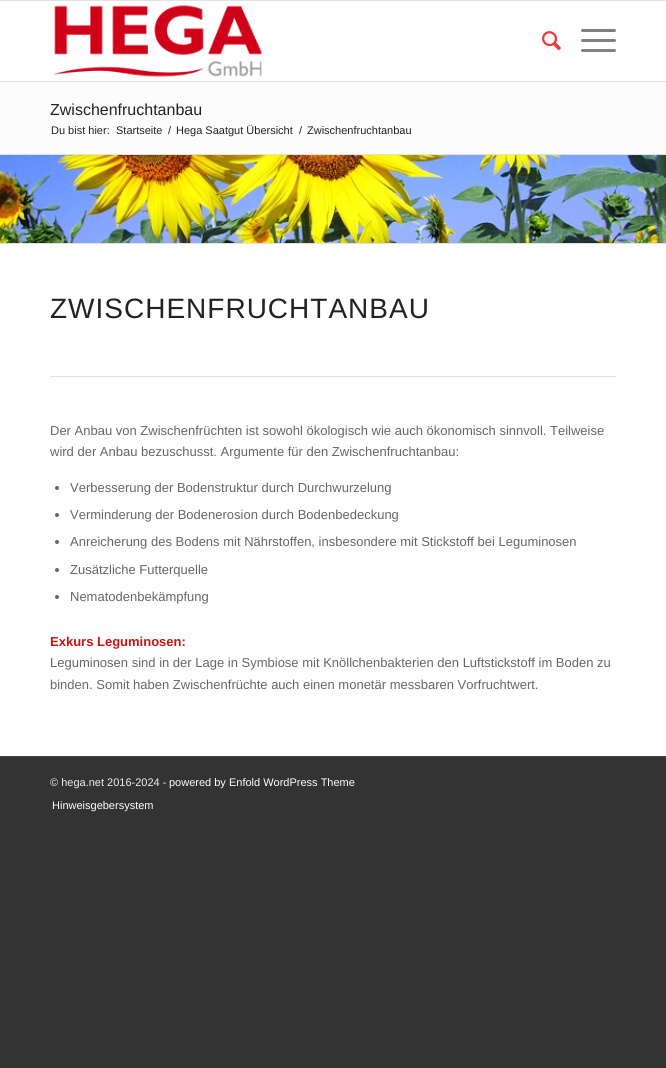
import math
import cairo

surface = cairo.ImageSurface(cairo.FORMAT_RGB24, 666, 1068)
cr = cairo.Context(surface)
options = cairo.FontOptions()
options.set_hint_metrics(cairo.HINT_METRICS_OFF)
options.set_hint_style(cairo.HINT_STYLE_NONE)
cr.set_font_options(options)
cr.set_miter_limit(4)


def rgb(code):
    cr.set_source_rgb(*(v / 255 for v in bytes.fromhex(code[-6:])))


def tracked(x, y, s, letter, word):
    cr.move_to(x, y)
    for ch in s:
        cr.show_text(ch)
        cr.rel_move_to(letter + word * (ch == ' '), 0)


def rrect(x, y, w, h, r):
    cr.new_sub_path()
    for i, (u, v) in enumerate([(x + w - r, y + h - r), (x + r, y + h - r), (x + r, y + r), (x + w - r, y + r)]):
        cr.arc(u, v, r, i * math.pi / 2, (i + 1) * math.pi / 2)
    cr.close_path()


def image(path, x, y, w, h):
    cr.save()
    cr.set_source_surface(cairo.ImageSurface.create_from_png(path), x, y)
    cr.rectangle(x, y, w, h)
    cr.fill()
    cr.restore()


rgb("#333333")
cr.paint()
for x, y, w, h, color in [
    (0, 0, 666, 1, "#e1e1e1"),
    (0, 81, 666, 1, "#e1e1e1"),
    (0, 1, 666, 80, "#ffffff"),
]:
    rgb(color)
    cr.rectangle(x, y, w, h)
    cr.fill()
image("img/1.png", 53, 5, 209, 72)
image("img/2.png", 542, 31, 19, 20)
rgb("#808080")
rrect(581, 39, 35, 3, 1.5)
cr.fill()
rrect(581, 29, 35, 3, 1.5)
cr.fill()
rrect(581, 49, 35, 3, 1.5)
cr.fill()
for x, y, w, h, color in [
    (0, 244, 666, 512, "#ffffff"),
    (0, 82, 666, 72, "#fcfcfc"),
    (0, 154, 666, 1, "#e1e1e1"),
]:
    rgb(color)
    cr.rectangle(x, y, w, h)
    cr.fill()
image("img/3.png", 0, 155, 666, 88)
cr.rectangle(0, 243, 666, 1)
cr.fill()
cr.rectangle(50, 376, 566, 1)
cr.fill()
rgb("#666666")
cr.arc(57, 488, 2, 0, 2 * math.pi)
cr.fill()
cr.arc(57, 515, 2, 0, 2 * math.pi)
cr.fill()
cr.arc(57, 542, 2, 0, 2 * math.pi)
cr.fill()
cr.arc(57, 570, 2, 0, 2 * math.pi)
cr.fill()
cr.arc(57, 597, 2, 0, 2 * math.pi)
cr.fill()
rgb("#444444")
cr.rectangle(0, 756, 666, 1)
cr.fill()
cr.select_font_face("Liberation Sans")
cr.set_font_size(16)
rgb("#222222")
cr.move_to(50, 115)
cr.show_text("Zwischenfruchtanbau")
cr.set_font_size(11)
for x, y, s in [
    (51, 134, "Du bist hier:"),
    (116, 134, "Startseite"),
    (168, 134, "/"),
    (176, 134, "Hega Saatgut Übersicht"),
    (299, 134, "/"),
    (307, 134, "Zwischenfruchtanbau"),
]:
    cr.move_to(x, y)
    cr.show_text(s)
cr.set_font_size(28)
tracked(50, 318, "ZWISCHENFRUCHTANBAU", 1, 0)
cr.set_font_size(13)
rgb("#666666")
for x, y, s in [
    (50, 435, "Der Anbau von Zwischenfrüchten ist sowohl ökologisch wie auch ökonomisch sinnvoll. Teilweise"),
    (50, 456, "wird der Anbau bezuschusst. Argumente für den Zwischenfruchtanbau:"),
    (70, 492, "Verbesserung der Bodenstruktur durch Durchwurzelung"),
    (70, 519, "Verminderung der Bodenerosion durch Bodenbedeckung"),
    (70, 546, "Anreicherung des Bodens mit Nährstoffen, insbesondere mit Stickstoff bei Leguminosen"),
    (70, 574, "Zusätzliche Futterquelle"),
    (70, 601, "Nematodenbekämpfung"),
]:
    cr.move_to(x, y)
    cr.show_text(s)
cr.select_font_face("Liberation Sans", cairo.FONT_SLANT_NORMAL, cairo.FONT_WEIGHT_BOLD)
rgb("#c71212")
cr.move_to(50, 646)
cr.show_text("Exkurs Leguminosen:")
cr.select_font_face("Liberation Sans")
rgb("#666666")
cr.move_to(50, 667)
cr.show_text("Leguminosen sind in der Lage in Symbiose mit Knöllchenbakterien den Luftstickstoff im Boden zu")
cr.move_to(50, 689)
cr.show_text("binden. Somit haben Zwischenfrüchte auch einen monetär messbaren Vorfruchtwert.")
cr.set_font_size(11)
rgb("#eeeeee")
cr.move_to(50, 786)
cr.show_text("© hega.net 2016-2024 -")
rgb("#ffffff")
cr.move_to(169, 786)
cr.show_text("powered by Enfold WordPress Theme")
cr.move_to(52, 809)
cr.show_text("Hinweisgebersystem")
surface.write_to_png("page.png")
